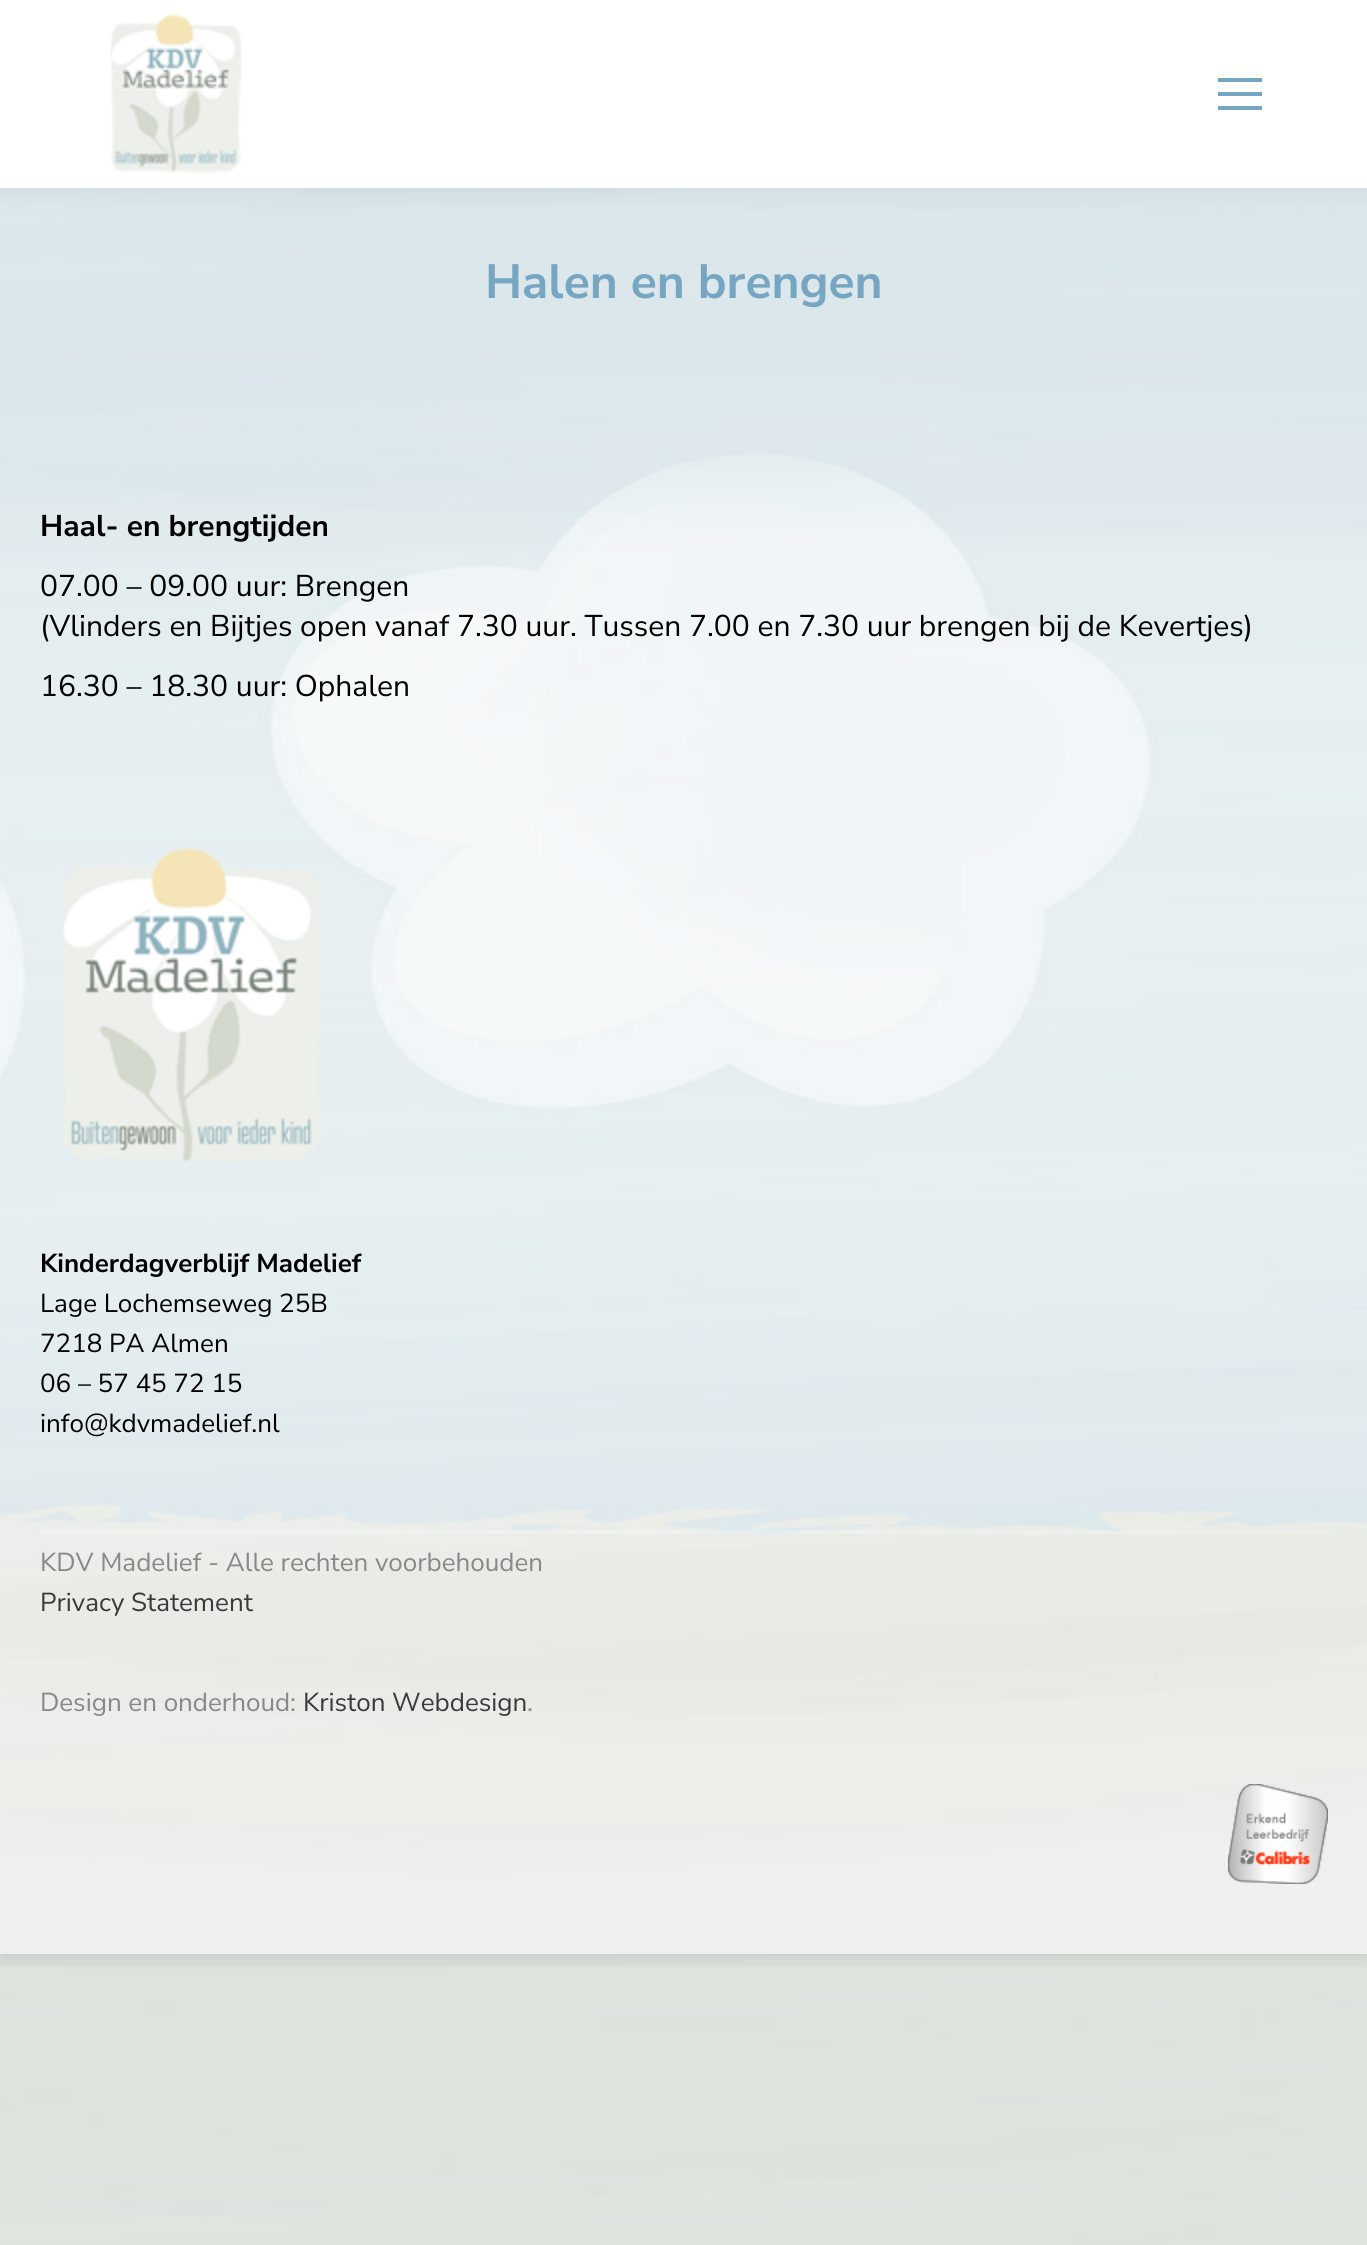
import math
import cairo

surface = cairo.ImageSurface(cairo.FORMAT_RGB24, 1367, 2245)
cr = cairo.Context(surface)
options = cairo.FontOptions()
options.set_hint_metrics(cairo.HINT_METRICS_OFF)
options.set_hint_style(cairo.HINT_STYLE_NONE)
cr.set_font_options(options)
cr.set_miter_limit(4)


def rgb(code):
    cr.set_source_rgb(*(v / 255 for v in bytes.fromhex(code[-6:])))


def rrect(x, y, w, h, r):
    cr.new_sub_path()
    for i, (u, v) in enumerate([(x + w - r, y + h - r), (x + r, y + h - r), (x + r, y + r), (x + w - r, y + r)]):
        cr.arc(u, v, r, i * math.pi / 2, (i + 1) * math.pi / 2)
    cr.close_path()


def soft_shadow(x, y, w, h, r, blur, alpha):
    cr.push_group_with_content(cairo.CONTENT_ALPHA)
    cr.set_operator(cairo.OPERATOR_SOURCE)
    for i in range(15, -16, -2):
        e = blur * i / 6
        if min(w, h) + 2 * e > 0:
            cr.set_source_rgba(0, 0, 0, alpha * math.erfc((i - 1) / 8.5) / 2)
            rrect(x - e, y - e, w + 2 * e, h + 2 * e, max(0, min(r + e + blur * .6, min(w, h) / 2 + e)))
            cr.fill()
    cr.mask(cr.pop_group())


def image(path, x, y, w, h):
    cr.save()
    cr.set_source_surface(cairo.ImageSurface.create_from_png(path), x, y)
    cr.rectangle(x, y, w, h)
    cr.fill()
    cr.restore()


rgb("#ffffff")
cr.paint()
image("img/1.png", 0, 188, 1367, 2057)
cr.save()
cr.rectangle(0, 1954, 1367, 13)
cr.clip()
rgb("#000000")
soft_shadow(0, 0, 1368, 1954, 0, 12, 0.15)
cr.restore()
cr.set_source_rgba(1, 1, 1, 0.5)
cr.rectangle(0, 188, 1367, 1766)
cr.fill()
rgb("#000000")
soft_shadow(-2, -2, 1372, 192, 0, 15, 0.07)
rgb("#ffffff")
cr.rectangle(0, 0, 1367, 188)
cr.fill()
image("img/2.png", 110, 13, 132, 161)
for x, y, w, h, color in [
    (1218, 78, 44, 4, "#76a6c1"),
    (1218, 92, 44, 4, "#76a6c1"),
    (1218, 106, 44, 4, "#76a6c1"),
]:
    rgb(color)
    cr.rectangle(x, y, w, h)
    cr.fill()
image("img/3.png", 62, 847, 259, 316)
cr.set_source_rgba(1, 1, 1, 0.2)
cr.rectangle(40, 1530, 1288, 4)
cr.fill()
image("img/4.png", 1228, 1784, 100, 100)
cr.select_font_face("Nunito Sans", cairo.FONT_SLANT_NORMAL, cairo.FONT_WEIGHT_BOLD)
cr.set_font_size(48)
rgb("#76a6c1")
cr.move_to(485, 298)
cr.show_text("Halen en brengen")
cr.set_font_size(30)
rgb("#000000")
cr.move_to(40, 536)
cr.show_text("Haal- en brengtijden")
cr.select_font_face("Nunito Sans")
for x, y, s in [
    (40, 596, "07.00 – 09.00 uur: Brengen"),
    (40, 636, "(Vlinders en Bijtjes open vanaf 7.30 uur. Tussen 7.00 en 7.30 uur brengen bij de Kevertjes)"),
    (40, 696, "16.30 – 18.30 uur: Ophalen"),
]:
    cr.move_to(x, y)
    cr.show_text(s)
cr.select_font_face("Nunito Sans", cairo.FONT_SLANT_NORMAL, cairo.FONT_WEIGHT_BOLD)
cr.set_font_size(26)
cr.move_to(40, 1272)
cr.show_text("Kinderdagverblijf Madelief")
cr.select_font_face("Nunito Sans")
for x, y, s in [
    (40, 1312, "Lage Lochemseweg 25B"),
    (40, 1352, "7218 PA Almen"),
    (40, 1392, "06 – 57 45 72 15"),
    (40, 1432, "info@kdvmadelief.nl"),
]:
    cr.move_to(x, y)
    cr.show_text(s)
rgb("#888888")
cr.move_to(40, 1571)
cr.show_text("KDV Madelief - Alle rechten voorbehouden")
rgb("#3a3a3a")
cr.move_to(40, 1611)
cr.show_text("Privacy Statement")
rgb("#888888")
cr.move_to(40, 1711)
cr.show_text("Design en onderhoud:")
rgb("#3a3a3a")
cr.move_to(303, 1711)
cr.show_text("Kriston Webdesign")
rgb("#888888")
cr.move_to(527, 1711)
cr.show_text(".")
surface.write_to_png("page.png")
